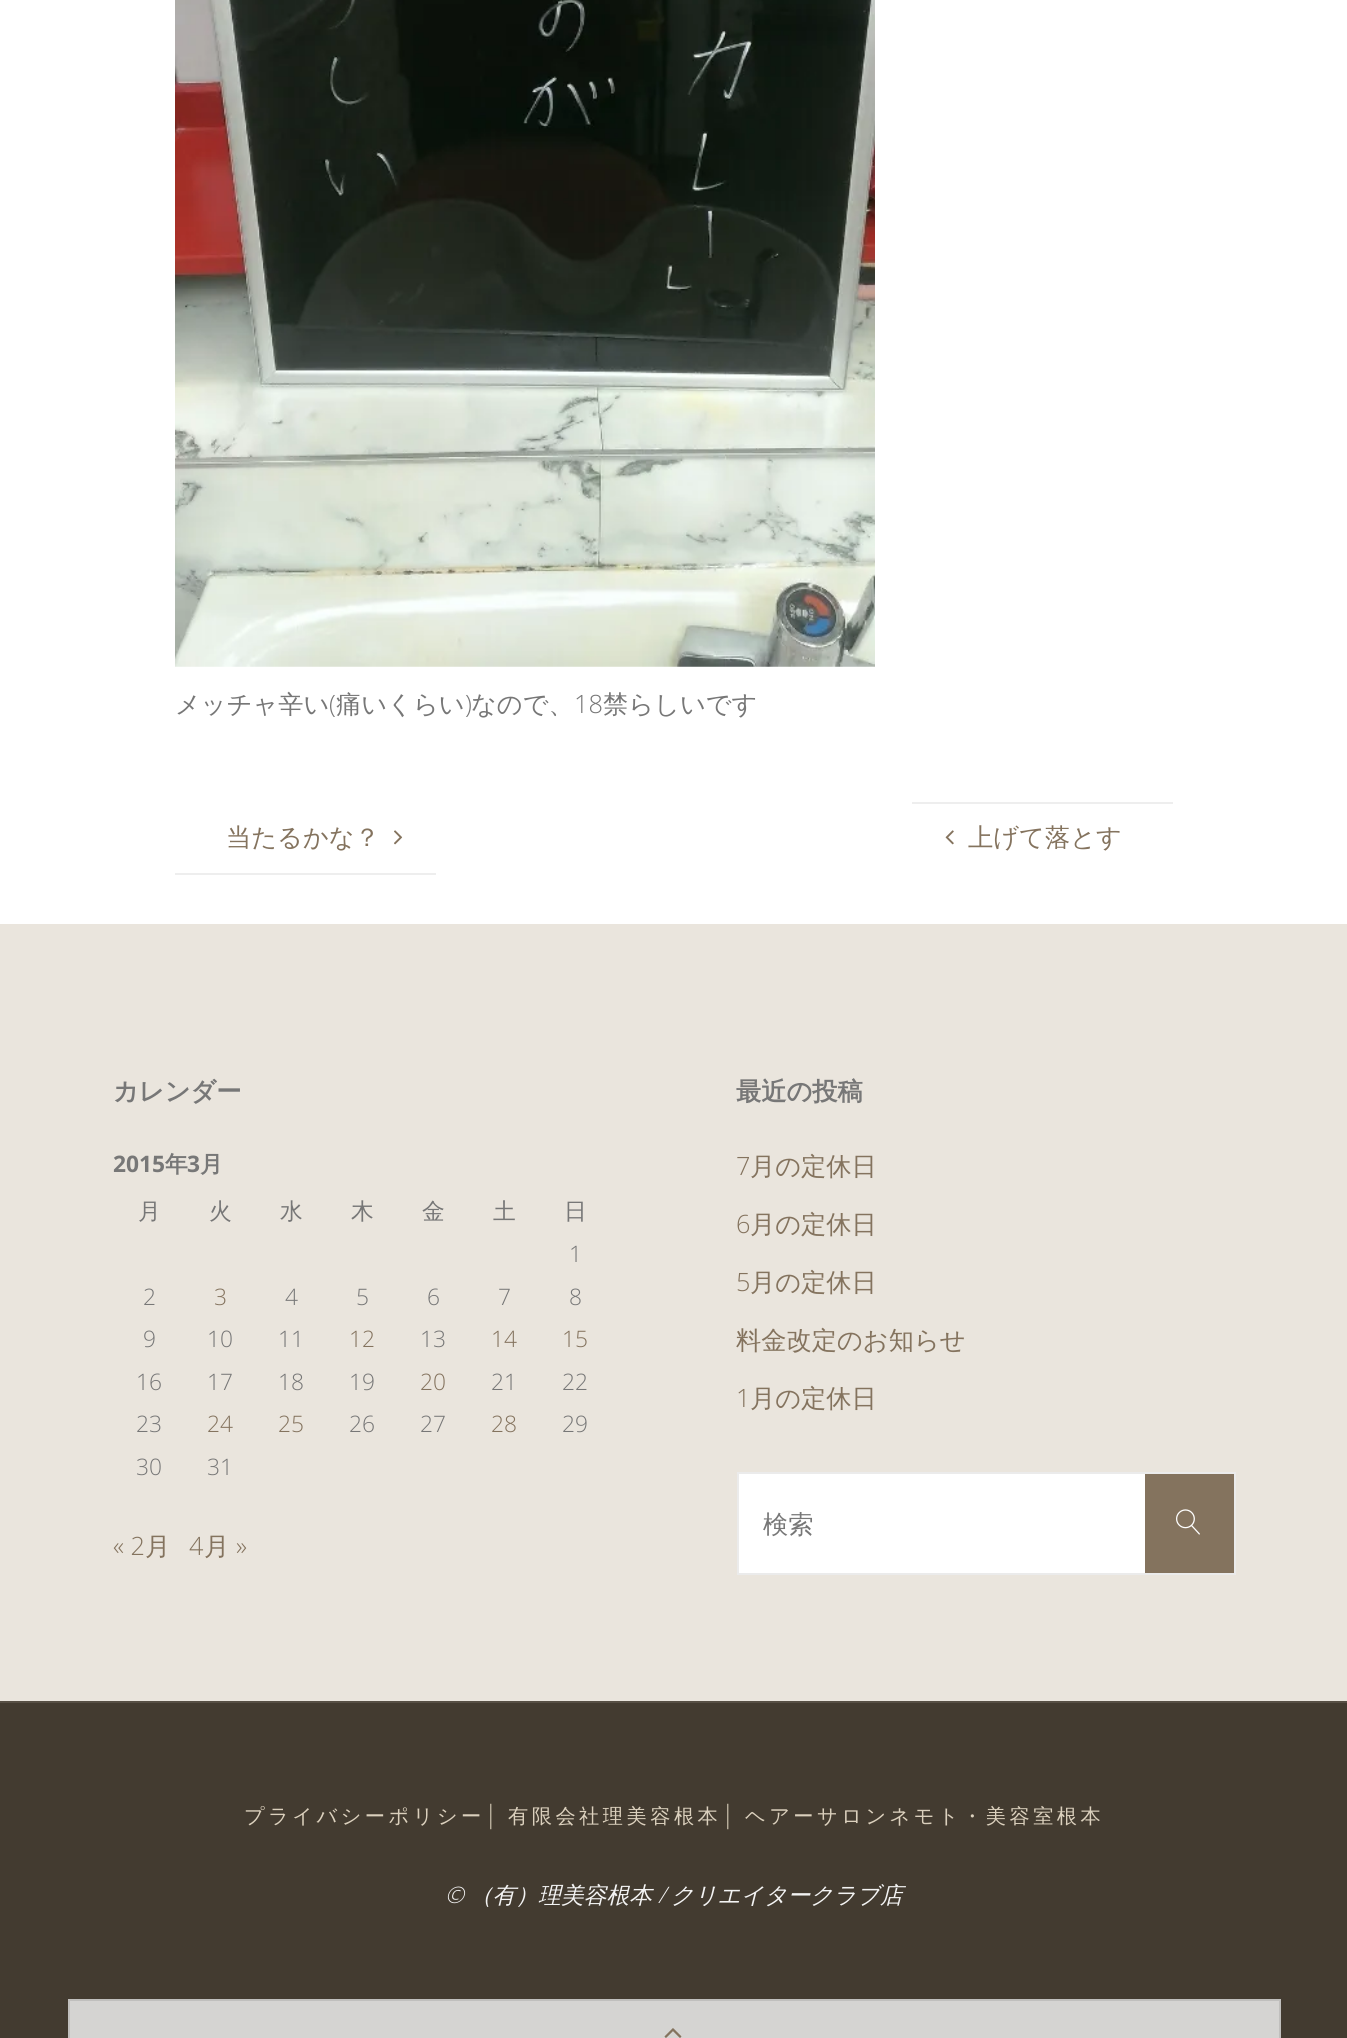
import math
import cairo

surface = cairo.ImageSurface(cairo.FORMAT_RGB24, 1347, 2038)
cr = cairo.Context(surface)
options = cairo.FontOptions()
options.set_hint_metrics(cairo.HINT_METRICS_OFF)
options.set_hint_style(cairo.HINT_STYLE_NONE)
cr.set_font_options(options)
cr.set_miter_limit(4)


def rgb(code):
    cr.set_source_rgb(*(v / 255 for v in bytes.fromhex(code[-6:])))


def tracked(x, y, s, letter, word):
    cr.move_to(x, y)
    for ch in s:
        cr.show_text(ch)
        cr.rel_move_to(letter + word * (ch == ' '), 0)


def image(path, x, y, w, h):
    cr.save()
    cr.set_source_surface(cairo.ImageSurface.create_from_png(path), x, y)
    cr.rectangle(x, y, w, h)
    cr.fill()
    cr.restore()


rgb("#eae5dd")
cr.paint()
rgb("#ffffff")
cr.rectangle(0, 0, 1347, 924)
cr.fill()
image("img/1.png", 175, 0, 700, 667)
image("img/2.png", 394, 830, 9, 15)
rgb("#eeeeee")
cr.rectangle(175, 873, 261, 2)
cr.fill()
cr.rectangle(912, 802, 261, 2)
cr.fill()
image("img/3.png", 945, 830, 9, 15)
rgb("#ffffff")
cr.rectangle(739, 1474, 406, 99)
cr.fill()
cr.rectangle(738, 1473, 497, 101)
rgb("#ebebeb")
cr.stroke()
rgb("#84735e")
cr.rectangle(1145, 1474, 89, 99)
cr.fill()
image("img/4.png", 1176, 1509, 24, 26)
rgb("#433b30")
cr.rectangle(0, 1703, 1347, 335)
cr.fill()
rgb("#574f44")
cr.rectangle(0, 1701, 1347, 2)
cr.fill()
rgb("#d5d4d2")
cr.rectangle(69, 2000, 1211, 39)
cr.fill_preserve()
rgb("#c0bfbd")
cr.stroke()
image("img/5.png", 664, 2028, 18, 10)
cr.select_font_face("WenQuanYi Zen Hei Medium")
cr.set_font_size(25.25)
rgb("#777777")
cr.move_to(175, 713)
cr.show_text("メッチャ辛い")
cr.select_font_face("Open Sans Light")
cr.move_to(329, 713)
cr.show_text("(")
cr.select_font_face("WenQuanYi Zen Hei Medium")
cr.move_to(336, 713)
cr.show_text("痛いくらい")
cr.select_font_face("Open Sans Light")
cr.move_to(465, 713)
cr.show_text(")")
cr.select_font_face("WenQuanYi Zen Hei Medium")
cr.move_to(471, 713)
cr.show_text("なので、")
cr.select_font_face("Open Sans Light")
cr.move_to(574, 713)
cr.show_text("18")
cr.select_font_face("WenQuanYi Zen Hei Medium")
cr.move_to(603, 713)
cr.show_text("禁らしいです")
rgb("#84735e")
cr.move_to(226, 846)
cr.show_text("当たるかな？")
cr.move_to(968, 846)
cr.show_text("上げて落とす")
cr.select_font_face("WenQuanYi Zen Hei", cairo.FONT_SLANT_NORMAL, cairo.FONT_WEIGHT_BOLD)
rgb("#777777")
cr.move_to(113, 1100)
cr.show_text("カレンダー")
cr.select_font_face("Open Sans", cairo.FONT_SLANT_NORMAL, cairo.FONT_WEIGHT_BOLD)
cr.set_font_size(22.75)
cr.move_to(113, 1172)
cr.show_text("2015")
cr.select_font_face("WenQuanYi Zen Hei", cairo.FONT_SLANT_NORMAL, cairo.FONT_WEIGHT_BOLD)
cr.move_to(165, 1172)
cr.show_text("年")
cr.select_font_face("Open Sans", cairo.FONT_SLANT_NORMAL, cairo.FONT_WEIGHT_BOLD)
cr.move_to(187, 1172)
cr.show_text("3")
cr.select_font_face("WenQuanYi Zen Hei", cairo.FONT_SLANT_NORMAL, cairo.FONT_WEIGHT_BOLD)
cr.move_to(200, 1172)
cr.show_text("月")
cr.select_font_face("WenQuanYi Zen Hei Medium")
for x, y, s in [
    (138, 1219, "月"),
    (209, 1219, "火"),
    (280, 1219, "水"),
    (351, 1219, "木"),
    (422, 1219, "金"),
    (493, 1219, "土"),
    (564, 1219, "日"),
]:
    cr.move_to(x, y)
    cr.show_text(s)
cr.select_font_face("Open Sans Light")
cr.move_to(569, 1262)
cr.show_text("1")
cr.move_to(143, 1305)
cr.show_text("2")
rgb("#84735e")
cr.move_to(214, 1305)
cr.show_text("3")
rgb("#777777")
for x, y, s in [
    (285, 1305, "4"),
    (356, 1305, "5"),
    (427, 1305, "6"),
    (498, 1305, "7"),
    (569, 1305, "8"),
    (143, 1347, "9"),
    (207, 1347, "10"),
    (278, 1347, "11"),
]:
    cr.move_to(x, y)
    cr.show_text(s)
rgb("#84735e")
cr.move_to(349, 1347)
cr.show_text("12")
rgb("#777777")
cr.move_to(420, 1347)
cr.show_text("13")
rgb("#84735e")
cr.move_to(491, 1347)
cr.show_text("14")
cr.move_to(562, 1347)
cr.show_text("15")
rgb("#777777")
for x, y, s in [
    (136, 1390, "16"),
    (207, 1390, "17"),
    (278, 1390, "18"),
    (349, 1390, "19"),
]:
    cr.move_to(x, y)
    cr.show_text(s)
rgb("#84735e")
cr.move_to(420, 1390)
cr.show_text("20")
rgb("#777777")
for x, y, s in [
    (491, 1390, "21"),
    (562, 1390, "22"),
    (136, 1432, "23"),
]:
    cr.move_to(x, y)
    cr.show_text(s)
rgb("#84735e")
cr.move_to(207, 1432)
cr.show_text("24")
cr.move_to(278, 1432)
cr.show_text("25")
rgb("#777777")
cr.move_to(349, 1432)
cr.show_text("26")
cr.move_to(420, 1432)
cr.show_text("27")
rgb("#84735e")
cr.move_to(491, 1432)
cr.show_text("28")
rgb("#777777")
for x, y, s in [
    (562, 1432, "29"),
    (136, 1475, "30"),
    (207, 1475, "31"),
]:
    cr.move_to(x, y)
    cr.show_text(s)
cr.set_font_size(25.25)
rgb("#84735e")
cr.move_to(113, 1555)
cr.show_text("« 2")
cr.select_font_face("WenQuanYi Zen Hei Medium")
cr.move_to(145, 1555)
cr.show_text("月")
cr.select_font_face("Open Sans Light")
cr.move_to(189, 1555)
cr.show_text("4")
cr.select_font_face("WenQuanYi Zen Hei Medium")
cr.move_to(204, 1555)
cr.show_text("月")
cr.select_font_face("Open Sans Light")
cr.move_to(236, 1555)
cr.show_text("»")
cr.select_font_face("WenQuanYi Zen Hei", cairo.FONT_SLANT_NORMAL, cairo.FONT_WEIGHT_BOLD)
rgb("#777777")
cr.move_to(736, 1100)
cr.show_text("最近の投稿")
cr.select_font_face("Open Sans Light")
rgb("#84735e")
cr.move_to(736, 1175)
cr.show_text("7")
cr.select_font_face("WenQuanYi Zen Hei Medium")
cr.move_to(750, 1175)
cr.show_text("月の定休日")
cr.select_font_face("Open Sans Light")
cr.move_to(736, 1233)
cr.show_text("6")
cr.select_font_face("WenQuanYi Zen Hei Medium")
cr.move_to(750, 1233)
cr.show_text("月の定休日")
cr.select_font_face("Open Sans Light")
cr.move_to(736, 1291)
cr.show_text("5")
cr.select_font_face("WenQuanYi Zen Hei Medium")
cr.move_to(750, 1291)
cr.show_text("月の定休日")
cr.move_to(736, 1349)
cr.show_text("料金改定のお知らせ")
cr.select_font_face("Open Sans Light")
cr.move_to(736, 1407)
cr.show_text("1")
cr.select_font_face("WenQuanYi Zen Hei Medium")
cr.move_to(750, 1407)
cr.show_text("月の定休日")
rgb("#777777")
cr.move_to(763, 1533)
cr.show_text("検索")
cr.set_font_size(20.2)
rgb("#dbd0bd")
tracked(244, 1823, "プライバシーポリシー", 3.5, 0)
cr.select_font_face("Open Sans Light")
cr.set_font_size(25.25)
tracked(484, 1823, "|", 10, 0)
cr.select_font_face("WenQuanYi Zen Hei Medium")
cr.set_font_size(20.2)
tracked(508, 1823, "有限会社理美容根本", 3.5, 0)
cr.select_font_face("Open Sans Light")
cr.set_font_size(25.25)
tracked(721, 1823, "|", 10, 0)
cr.select_font_face("WenQuanYi Zen Hei Medium")
cr.set_font_size(20.2)
tracked(745, 1823, "ヘアーサロンネモト・美容室根本", 3.5, 0)
cr.select_font_face("Open Sans Light", cairo.FONT_SLANT_ITALIC)
cr.set_font_size(22.75)
rgb("#f3f3f3")
cr.move_to(445, 1903)
cr.show_text("©")
cr.select_font_face("WenQuanYi Zen Hei Medium", cairo.FONT_SLANT_ITALIC)
cr.move_to(470, 1903)
cr.show_text("（有）理美容根本")
cr.select_font_face("Open Sans Light", cairo.FONT_SLANT_ITALIC)
cr.move_to(658, 1903)
cr.show_text("/")
cr.select_font_face("WenQuanYi Zen Hei Medium", cairo.FONT_SLANT_ITALIC)
cr.move_to(671, 1903)
cr.show_text("クリエイタークラブ店")
surface.write_to_png("page.png")
